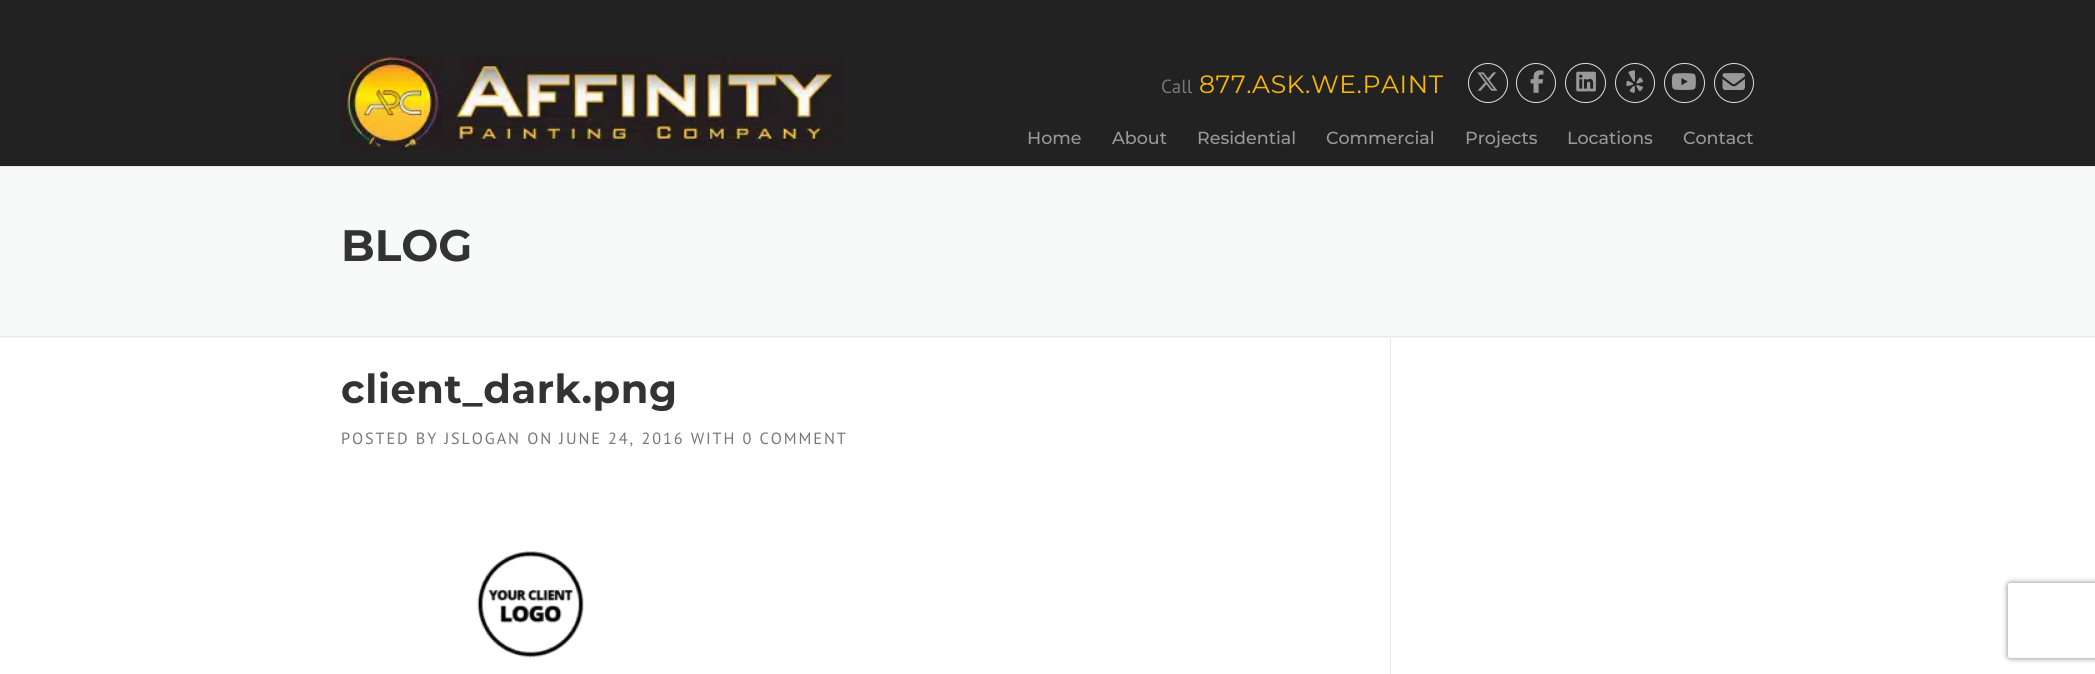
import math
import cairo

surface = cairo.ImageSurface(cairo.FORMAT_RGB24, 2095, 674)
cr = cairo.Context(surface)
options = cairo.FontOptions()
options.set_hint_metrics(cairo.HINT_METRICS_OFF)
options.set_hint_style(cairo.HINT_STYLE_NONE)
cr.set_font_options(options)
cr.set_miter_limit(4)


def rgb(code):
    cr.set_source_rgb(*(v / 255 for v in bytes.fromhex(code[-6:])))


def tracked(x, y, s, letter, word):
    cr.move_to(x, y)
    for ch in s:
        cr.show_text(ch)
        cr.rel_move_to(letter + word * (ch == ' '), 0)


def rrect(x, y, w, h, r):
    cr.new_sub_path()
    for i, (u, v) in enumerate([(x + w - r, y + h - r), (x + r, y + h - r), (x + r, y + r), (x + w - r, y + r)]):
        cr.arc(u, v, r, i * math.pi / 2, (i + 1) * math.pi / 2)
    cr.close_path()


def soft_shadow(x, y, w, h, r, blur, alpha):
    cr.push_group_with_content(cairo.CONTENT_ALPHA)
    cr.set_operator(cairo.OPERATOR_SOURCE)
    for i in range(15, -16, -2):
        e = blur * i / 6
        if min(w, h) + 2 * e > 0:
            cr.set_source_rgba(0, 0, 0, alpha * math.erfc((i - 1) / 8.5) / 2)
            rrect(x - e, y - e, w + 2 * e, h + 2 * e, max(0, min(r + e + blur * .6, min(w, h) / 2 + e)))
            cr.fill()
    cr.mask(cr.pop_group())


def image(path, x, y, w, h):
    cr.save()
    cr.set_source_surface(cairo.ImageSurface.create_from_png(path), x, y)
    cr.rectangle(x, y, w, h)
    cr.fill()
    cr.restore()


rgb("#ffffff")
cr.paint()
rgb("#222222")
cr.rectangle(0, 0, 2095, 166)
cr.fill()
image("img/1.png", 341, 56, 502, 94)
cr.arc(1488, 83, 19.5, 0, 2 * math.pi)
rgb("#dddddd")
cr.set_line_width(1)
cr.stroke()
image("img/2.png", 1477, 72, 21, 19)
cr.arc(1536, 83, 19.5, 0, 2 * math.pi)
cr.stroke()
image("img/3.png", 1530, 70, 14, 23)
rrect(1565.5, 63.5, 40, 39, 19.5)
cr.stroke()
image("img/4.png", 1576, 71, 20, 21)
cr.arc(1635, 83, 19.5, 0, 2 * math.pi)
cr.stroke()
image("img/5.png", 1626, 70, 17, 23)
rrect(1664.5, 63.5, 40, 39, 19.5)
cr.stroke()
image("img/6.png", 1671, 73, 25, 17)
cr.arc(1734, 83, 19.5, 0, 2 * math.pi)
cr.stroke()
image("img/7.png", 1722, 73, 23, 17)
for x, y, w, h, color in [
    (0, 167, 2095, 171, "#f8f9f9"),
    (0, 166, 2095, 1, "#e9e9e9"),
    (0, 336, 2095, 1, "#e9e9e9"),
    (1390, 338, 1, 336, "#e9e9e9"),
]:
    rgb(color)
    cr.rectangle(x, y, w, h)
    cr.fill()
image("img/8.png", 477, 551, 107, 107)
cr.save()
cr.set_fill_rule(cairo.FILL_RULE_EVEN_ODD)
cr.new_path()
cr.move_to(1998, 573)
cr.line_to(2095, 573)
cr.line_to(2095, 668)
cr.line_to(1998, 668)
cr.close_path()
cr.move_to(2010.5, 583)
cr.line_to(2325.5, 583)
cr.curve_to(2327, 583, 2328, 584, 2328, 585.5)
cr.line_to(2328, 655.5)
cr.curve_to(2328, 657, 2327, 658, 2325.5, 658)
cr.line_to(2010.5, 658)
cr.curve_to(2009, 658, 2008, 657, 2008, 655.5)
cr.line_to(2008, 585.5)
cr.curve_to(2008, 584, 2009, 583, 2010.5, 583)
cr.close_path()
cr.clip()
rgb("#808080")
soft_shadow(2008, 583, 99, 75, 2.5, 3, 1)
cr.restore()
cr.select_font_face("PT Sans")
cr.set_font_size(19)
rgb("#777777")
cr.move_to(1161, 93)
cr.show_text("Call")
cr.select_font_face("Montserrat")
cr.set_font_size(25)
rgb("#fab702")
tracked(1199, 93, "877.ASK.WE.PAINT", 0.6, 0)
cr.select_font_face("Montserrat Medium")
cr.set_font_size(17.5)
rgb("#999999")
for x, y, s in [
    (1027, 144, "Home"),
    (1112, 144, "About"),
    (1197, 144, "Residential"),
    (1326, 144, "Commercial"),
    (1465, 144, "Projects"),
    (1567, 144, "Locations"),
    (1683, 144, "Contact"),
]:
    cr.move_to(x, y)
    cr.show_text(s)
cr.select_font_face("Montserrat", cairo.FONT_SLANT_NORMAL, cairo.FONT_WEIGHT_BOLD)
cr.set_font_size(44)
rgb("#333333")
cr.move_to(341, 261)
cr.show_text("BLOG")
cr.set_font_size(40)
tracked(341, 403, "client_dark.png", 0.6, 0)
cr.select_font_face("PT Sans")
cr.set_font_size(16.25)
rgb("#777777")
tracked(341, 444, "POSTED BY JSLOGAN ON JUNE 24, 2016 WITH 0 COMMENT", 1.9, 0)
surface.write_to_png("page.png")
